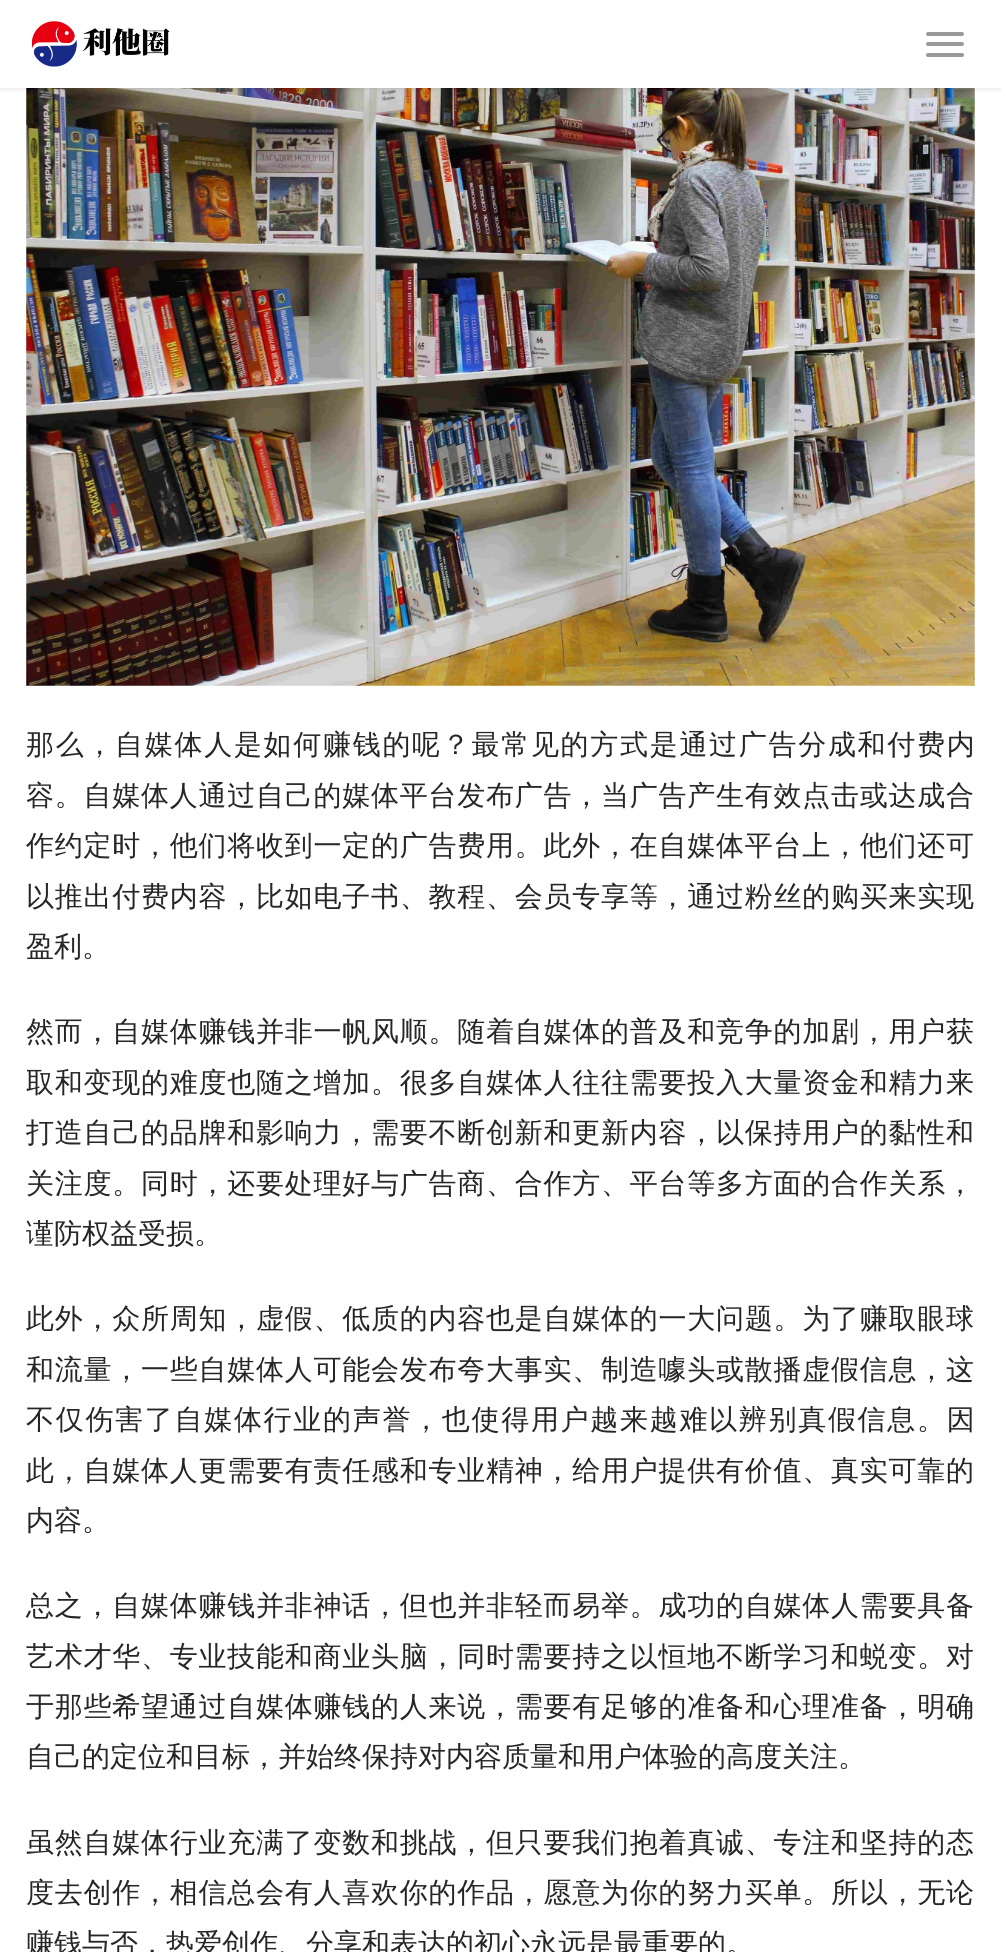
import math
import cairo

surface = cairo.ImageSurface(cairo.FORMAT_RGB24, 1001, 1952)
cr = cairo.Context(surface)
options = cairo.FontOptions()
options.set_hint_metrics(cairo.HINT_METRICS_OFF)
options.set_hint_style(cairo.HINT_STYLE_NONE)
cr.set_font_options(options)
cr.set_miter_limit(4)


def rgb(code):
    cr.set_source_rgb(*(v / 255 for v in bytes.fromhex(code[-6:])))


def tracked(x, y, s, letter, word):
    cr.move_to(x, y)
    for ch in s:
        cr.show_text(ch)
        cr.rel_move_to(letter + word * (ch == ' '), 0)


def rrect(x, y, w, h, r):
    cr.new_sub_path()
    for i, (u, v) in enumerate([(x + w - r, y + h - r), (x + r, y + h - r), (x + r, y + r), (x + w - r, y + r)]):
        cr.arc(u, v, r, i * math.pi / 2, (i + 1) * math.pi / 2)
    cr.close_path()


def soft_shadow(x, y, w, h, r, blur, alpha):
    cr.push_group_with_content(cairo.CONTENT_ALPHA)
    cr.set_operator(cairo.OPERATOR_SOURCE)
    for i in range(15, -16, -2):
        e = blur * i / 6
        if min(w, h) + 2 * e > 0:
            cr.set_source_rgba(0, 0, 0, alpha * math.erfc((i - 1) / 8.5) / 2)
            rrect(x - e, y - e, w + 2 * e, h + 2 * e, max(0, min(r + e + blur * .6, min(w, h) / 2 + e)))
            cr.fill()
    cr.mask(cr.pop_group())


def image(path, x, y, w, h):
    cr.save()
    cr.set_source_surface(cairo.ImageSurface.create_from_png(path), x, y)
    cr.rectangle(x, y, w, h)
    cr.fill()
    cr.restore()


rgb("#ffffff")
cr.paint()
image("img/2.png", 26, 88, 949, 598)
rgb("#000000")
soft_shadow(-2, -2, 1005, 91, 0, 2.5, 0.1)
rgb("#ffffff")
cr.rectangle(0, 0, 1001, 88)
cr.fill()
image("img/1.png", 32, 21, 138, 46)
rgb("#999999")
rrect(926, 32, 38, 4, 2)
cr.fill()
rrect(926, 42, 38, 4, 2)
cr.fill()
rrect(926, 53, 38, 4, 2)
cr.fill()
cr.select_font_face("WenQuanYi Zen Hei Medium")
cr.set_font_size(28)
rgb("#262626")
tracked(26, 754, "那么，自媒体人是如何赚钱的呢？最常见的方式是通过广告分成和付费内", 1.7, 0)
for x, y, s in [
    (26, 805, "容。自媒体人通过自己的媒体平台发布广告，当广告产生有效点击或达成合"),
    (26, 855, "作约定时，他们将收到一定的广告费用。此外，在自媒体平台上，他们还可"),
    (26, 906, "以推出付费内容，比如电子书、教程、会员专享等，通过粉丝的购买来实现"),
]:
    tracked(x, y, s, 0.75, 0)
cr.move_to(26, 956)
cr.show_text("盈利。")
for x, y, s in [
    (26, 1041, "然而，自媒体赚钱并非一帆风顺。随着自媒体的普及和竞争的加剧，用户获"),
    (26, 1092, "取和变现的难度也随之增加。很多自媒体人往往需要投入大量资金和精力来"),
    (26, 1142, "打造自己的品牌和影响力，需要不断创新和更新内容，以保持用户的黏性和"),
    (26, 1193, "关注度。同时，还要处理好与广告商、合作方、平台等多方面的合作关系，"),
]:
    tracked(x, y, s, 0.75, 0)
cr.move_to(26, 1243)
cr.show_text("谨防权益受损。")
tracked(26, 1328, "此外，众所周知，虚假、低质的内容也是自媒体的一大问题。为了赚取眼球", 0.75, 0)
tracked(26, 1379, "和流量，一些自媒体人可能会发布夸大事实、制造噱头或散播虚假信息，这", 0.75, 0)
tracked(26, 1429, "不仅伤害了自媒体行业的声誉，也使得用户越来越难以辨别真假信息。因", 1.7, 0)
tracked(26, 1480, "此，自媒体人更需要有责任感和专业精神，给用户提供有价值、真实可靠的", 0.75, 0)
cr.move_to(26, 1530)
cr.show_text("内容。")
for x, y, s in [
    (26, 1615, "总之，自媒体赚钱并非神话，但也并非轻而易举。成功的自媒体人需要具备"),
    (26, 1666, "艺术才华、专业技能和商业头脑，同时需要持之以恒地不断学习和蜕变。对"),
    (26, 1716, "于那些希望通过自媒体赚钱的人来说，需要有足够的准备和心理准备，明确"),
]:
    tracked(x, y, s, 0.75, 0)
cr.move_to(26, 1766)
cr.show_text("自己的定位和目标，并始终保持对内容质量和用户体验的高度关注。")
tracked(26, 1852, "虽然自媒体行业充满了变数和挑战，但只要我们抱着真诚、专注和坚持的态", 0.75, 0)
tracked(26, 1902, "度去创作，相信总会有人喜欢你的作品，愿意为你的努力买单。所以，无论", 0.75, 0)
cr.move_to(26, 1953)
cr.show_text("赚钱与否，热爱创作、分享和表达的初心永远是最重要的。")
surface.write_to_png("page.png")
